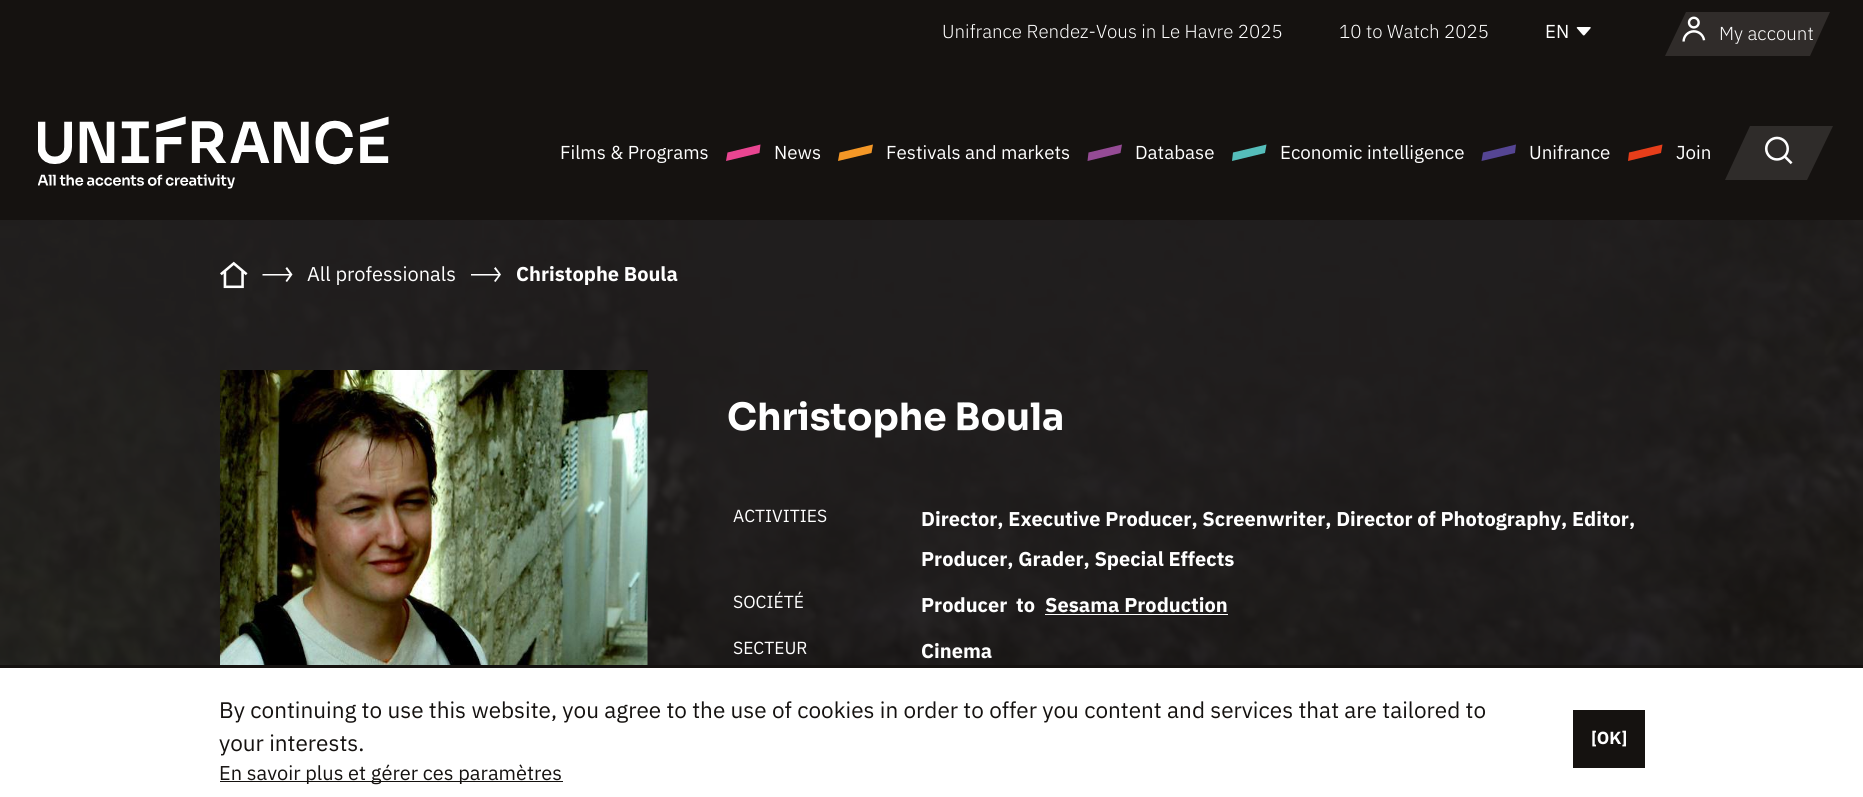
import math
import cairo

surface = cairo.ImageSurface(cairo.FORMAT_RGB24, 1863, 797)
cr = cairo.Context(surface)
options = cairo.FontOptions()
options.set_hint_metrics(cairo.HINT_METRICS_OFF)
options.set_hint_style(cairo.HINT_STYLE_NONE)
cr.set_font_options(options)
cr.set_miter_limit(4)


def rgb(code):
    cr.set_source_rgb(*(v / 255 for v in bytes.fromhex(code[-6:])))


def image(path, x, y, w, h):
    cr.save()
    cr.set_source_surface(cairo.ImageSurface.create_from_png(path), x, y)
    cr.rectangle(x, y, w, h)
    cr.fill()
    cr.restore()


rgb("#ffffff")
cr.paint()
rgb("#151210")
cr.rectangle(0, 0, 1863, 220)
cr.fill()
image("img/1.png", 1576, 27, 15, 9)
rgb("#302c2a")
cr.new_path()
cr.move_to(1686, 12)
cr.line_to(1830, 12)
cr.line_to(1810, 56)
cr.line_to(1665, 56)
cr.close_path()
cr.fill()
image("img/2.png", 1682, 16, 24, 26)
image("img/3.png", 38, 116, 351, 73)
rgb("#e94591")
cr.new_path()
cr.move_to(727.5, 152.5)
cr.line_to(760.5, 144.5)
cr.line_to(759.5, 153)
cr.line_to(726, 161)
cr.close_path()
cr.fill()
rgb("#f49726")
cr.new_path()
cr.move_to(839.5, 152.5)
cr.line_to(873, 144.5)
cr.line_to(871.5, 153)
cr.line_to(838, 161)
cr.close_path()
cr.fill()
rgb("#954b95")
cr.new_path()
cr.move_to(1088.5, 152.5)
cr.line_to(1122, 144.5)
cr.line_to(1120.5, 153)
cr.line_to(1087.5, 161)
cr.close_path()
cr.fill()
rgb("#55bdba")
cr.new_path()
cr.move_to(1233, 152.5)
cr.line_to(1266.5, 144.5)
cr.line_to(1265, 153)
cr.line_to(1232, 161)
cr.close_path()
cr.fill()
rgb("#554593")
cr.new_path()
cr.move_to(1483, 152.5)
cr.line_to(1516, 144.5)
cr.line_to(1515, 153)
cr.line_to(1481.5, 161)
cr.close_path()
cr.fill()
rgb("#e73e1a")
cr.new_path()
cr.move_to(1629, 152.5)
cr.line_to(1662.5, 144.5)
cr.line_to(1661, 153)
cr.line_to(1628, 161)
cr.close_path()
cr.fill()
rgb("#2f2c2a")
cr.new_path()
cr.move_to(1750, 126)
cr.line_to(1833, 126)
cr.line_to(1807, 180)
cr.line_to(1725, 180)
cr.close_path()
cr.fill()
image("img/4.png", 1764, 136, 29, 29)
image("img/5.png", 0, 220, 1863, 445)
image("img/6.png", 220, 261, 28, 28)
rgb("#ffffff")
cr.new_path()
cr.move_to(262.5, 274)
cr.line_to(262.5, 275.5)
cr.line_to(291.5, 275.5)
cr.line_to(291.5, 274)
cr.close_path()
cr.move_to(287, 267)
cr.line_to(285.5, 268.5)
cr.line_to(290, 274.5)
cr.line_to(285.5, 281)
cr.line_to(287, 282)
cr.line_to(292.5, 274.5)
cr.close_path()
cr.fill()
cr.new_path()
cr.move_to(471, 274)
cr.line_to(471, 275.5)
cr.line_to(500, 275.5)
cr.line_to(500, 274)
cr.close_path()
cr.move_to(495.5, 267)
cr.line_to(494, 268.5)
cr.line_to(499, 274.5)
cr.line_to(494, 281)
cr.line_to(495.5, 282)
cr.line_to(501, 274.5)
cr.close_path()
cr.fill()
image("img/7.png", 220, 370, 428, 295)
for x, y, w, h, color in [
    (1045, 614, 183, 1, "#ffffff"),
    (0, 665, 1863, 3, "#151210"),
    (220, 781, 343, 1, "#151210"),
    (1573, 710, 72, 58, "#151210"),
]:
    rgb(color)
    cr.rectangle(x, y, w, h)
    cr.fill()
cr.select_font_face("IBM Plex Sans Light")
cr.set_font_size(18.75)
rgb("#ffffff")
cr.move_to(942, 38)
cr.show_text("Unifrance Rendez-Vous in Le Havre 2025")
cr.move_to(1339, 38)
cr.show_text("10 to Watch 2025")
cr.select_font_face("IBM Plex Sans")
cr.move_to(1545, 38)
cr.show_text("EN")
cr.select_font_face("IBM Plex Sans Light")
cr.move_to(1719, 40)
cr.show_text("My account")
cr.select_font_face("IBM Plex Sans")
for x, y, s in [
    (560, 159, "Films & Programs"),
    (774, 159, "News"),
    (886, 159, "Festivals and markets"),
    (1135, 159, "Database"),
    (1280, 159, "Economic intelligence"),
    (1529, 159, "Unifrance"),
    (1676, 159, "Join"),
]:
    cr.move_to(x, y)
    cr.show_text(s)
cr.set_font_size(20)
cr.move_to(307, 281)
cr.show_text("All professionals")
cr.select_font_face("IBM Plex Sans", cairo.FONT_SLANT_NORMAL, cairo.FONT_WEIGHT_BOLD)
cr.move_to(516, 281)
cr.show_text("Christophe Boula")
cr.select_font_face("Sora", cairo.FONT_SLANT_NORMAL, cairo.FONT_WEIGHT_BOLD)
cr.set_font_size(37.5)
cr.move_to(727, 430)
cr.show_text("Christophe Boula")
cr.select_font_face("IBM Plex Sans")
cr.set_font_size(17.5)
cr.move_to(733, 522)
cr.show_text("ACTIVITIES")
cr.select_font_face("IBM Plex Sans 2", cairo.FONT_SLANT_NORMAL, cairo.FONT_WEIGHT_BOLD)
cr.set_font_size(20)
cr.move_to(921, 526)
cr.show_text("Director, Executive Producer, Screenwriter, Director of Photography, Editor,")
cr.move_to(921, 566)
cr.show_text("Producer, Grader, Special Effects")
cr.select_font_face("IBM Plex Sans")
cr.set_font_size(17.5)
cr.move_to(733, 608)
cr.show_text("SOCIÉTÉ")
cr.select_font_face("IBM Plex Sans 2", cairo.FONT_SLANT_NORMAL, cairo.FONT_WEIGHT_BOLD)
cr.set_font_size(20)
for x, y, s in [
    (921, 612, "Producer"),
    (1016, 612, "to"),
    (1045, 612, "Sesama Production"),
]:
    cr.move_to(x, y)
    cr.show_text(s)
cr.select_font_face("IBM Plex Sans")
cr.set_font_size(17.5)
cr.move_to(733, 654)
cr.show_text("SECTEUR")
cr.select_font_face("IBM Plex Sans 2", cairo.FONT_SLANT_NORMAL, cairo.FONT_WEIGHT_BOLD)
cr.set_font_size(20)
cr.move_to(921, 658)
cr.show_text("Cinema")
cr.select_font_face("IBM Plex Sans")
cr.set_font_size(22.5)
rgb("#151210")
cr.move_to(219, 718)
cr.show_text("By continuing to use this website, you agree to the use of cookies in order to offer you content and services that are tailored to")
cr.move_to(219, 751)
cr.show_text("your interests.")
cr.set_font_size(20)
cr.move_to(219, 780)
cr.show_text("En savoir plus et gérer ces paramètres")
cr.select_font_face("IBM Plex Sans", cairo.FONT_SLANT_NORMAL, cairo.FONT_WEIGHT_BOLD)
cr.set_font_size(17.5)
rgb("#ffffff")
cr.move_to(1591, 744)
cr.show_text("[OK]")
surface.write_to_png("page.png")
